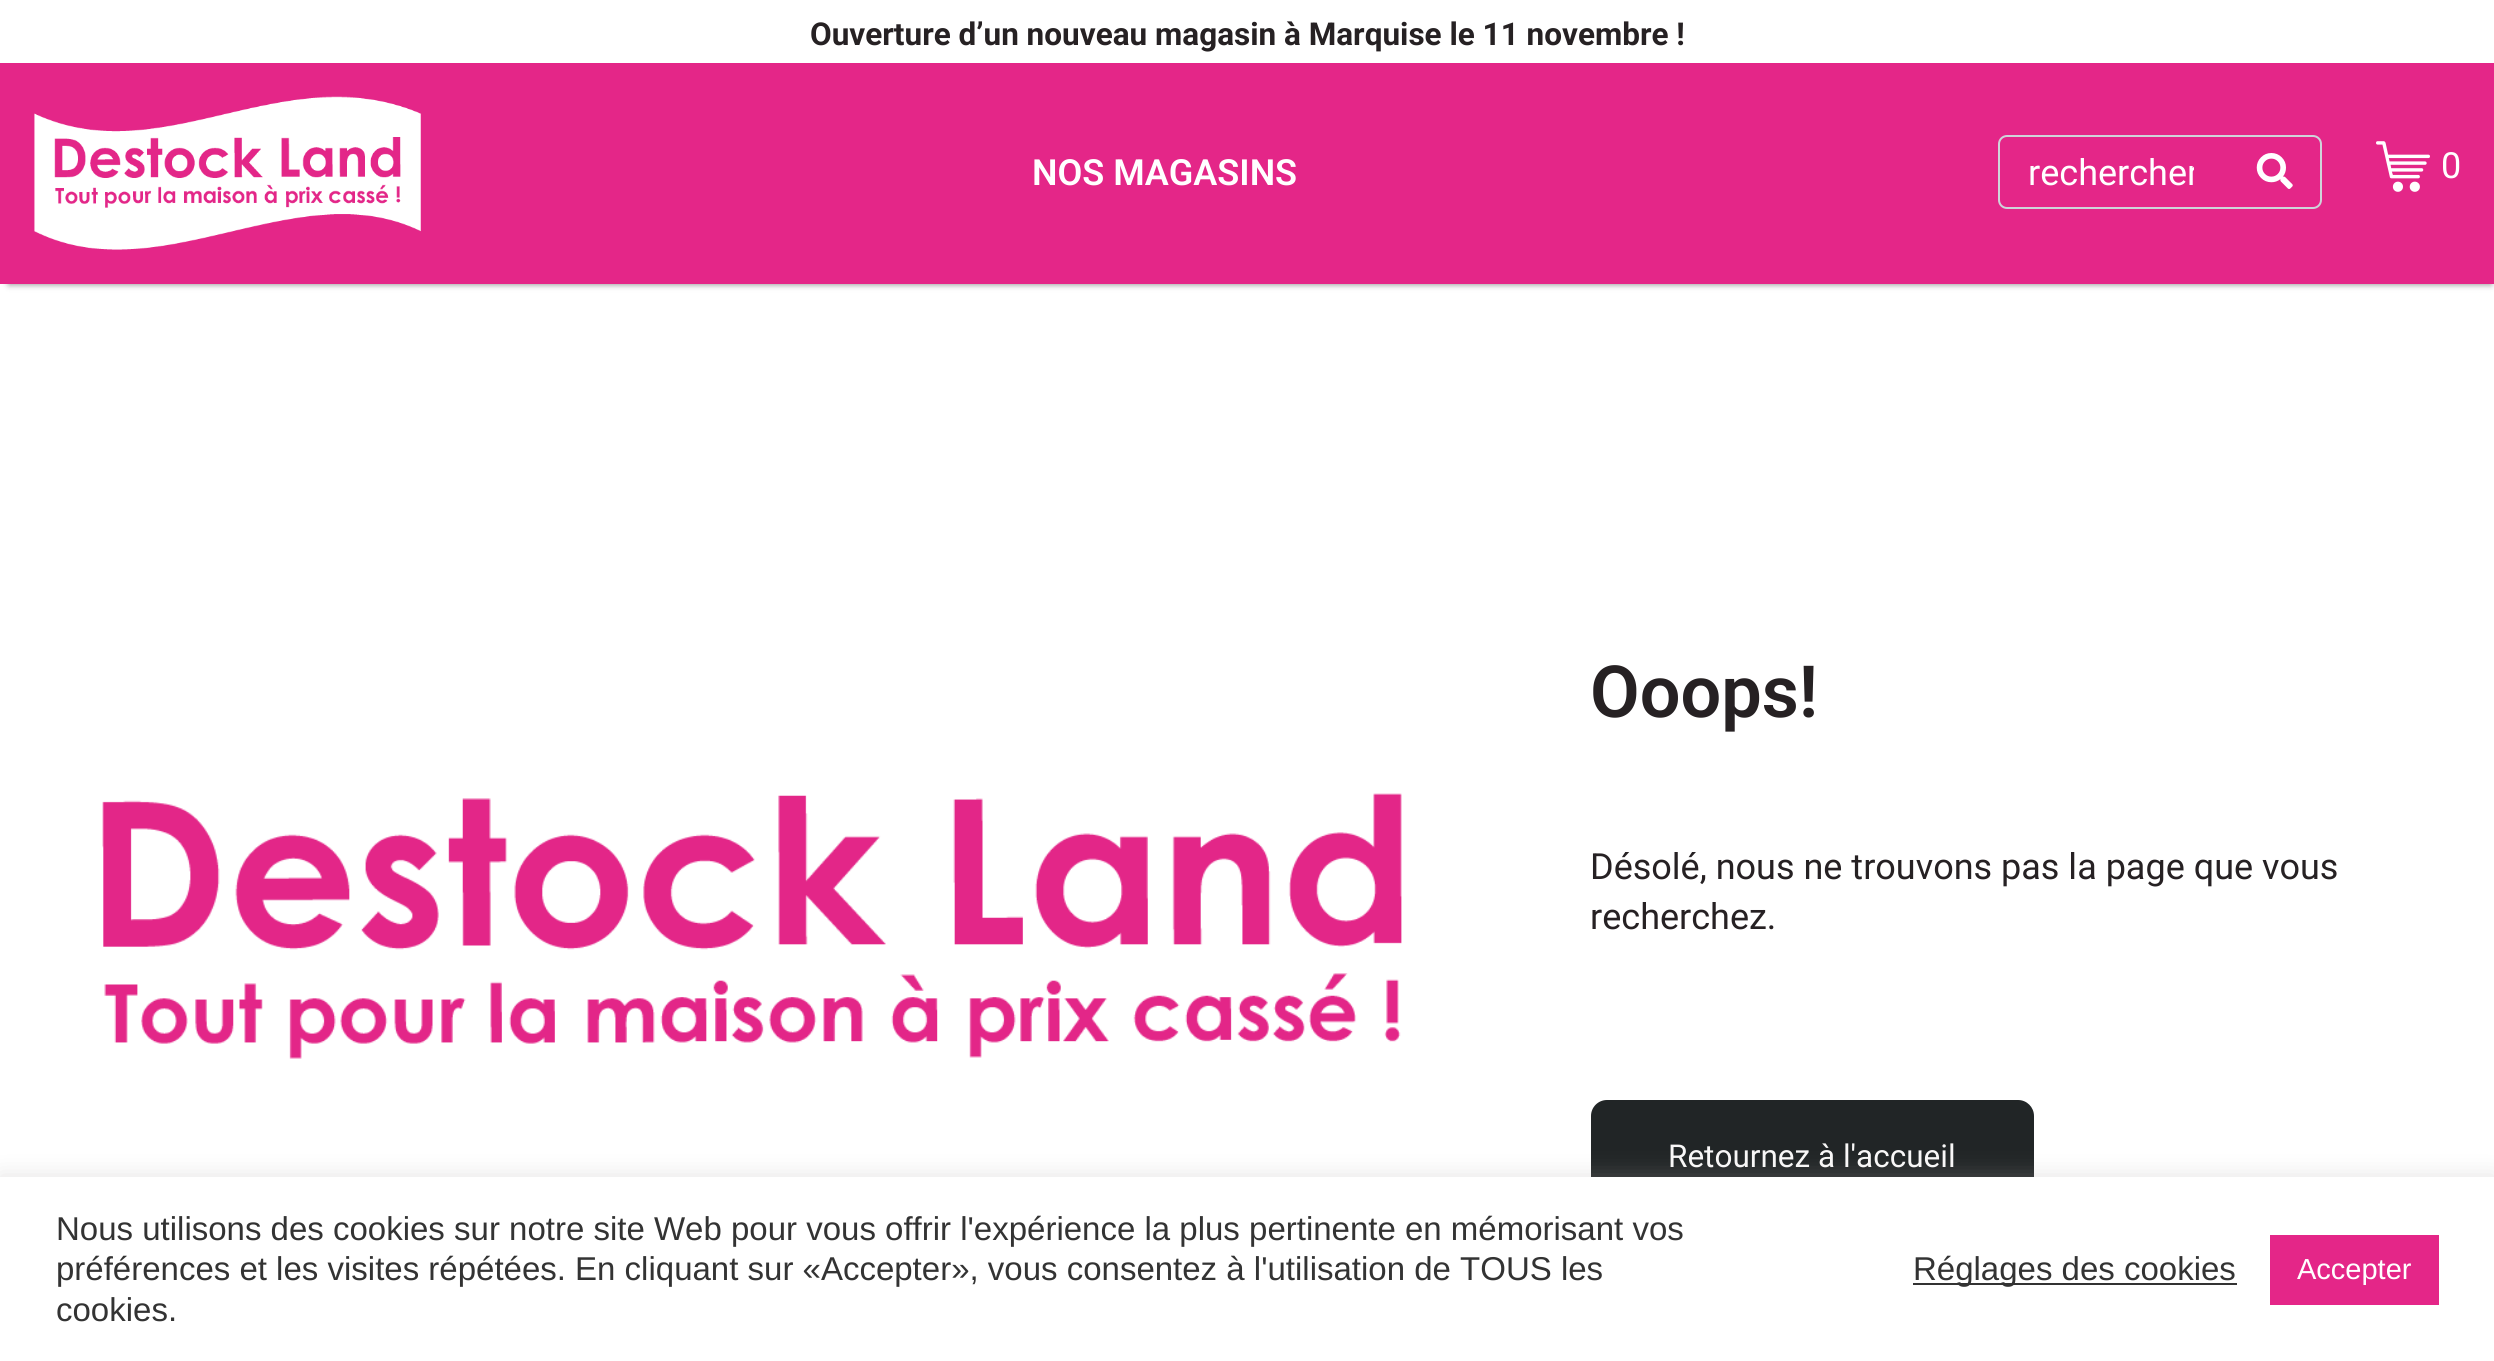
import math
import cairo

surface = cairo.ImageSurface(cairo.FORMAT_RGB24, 2494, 1361)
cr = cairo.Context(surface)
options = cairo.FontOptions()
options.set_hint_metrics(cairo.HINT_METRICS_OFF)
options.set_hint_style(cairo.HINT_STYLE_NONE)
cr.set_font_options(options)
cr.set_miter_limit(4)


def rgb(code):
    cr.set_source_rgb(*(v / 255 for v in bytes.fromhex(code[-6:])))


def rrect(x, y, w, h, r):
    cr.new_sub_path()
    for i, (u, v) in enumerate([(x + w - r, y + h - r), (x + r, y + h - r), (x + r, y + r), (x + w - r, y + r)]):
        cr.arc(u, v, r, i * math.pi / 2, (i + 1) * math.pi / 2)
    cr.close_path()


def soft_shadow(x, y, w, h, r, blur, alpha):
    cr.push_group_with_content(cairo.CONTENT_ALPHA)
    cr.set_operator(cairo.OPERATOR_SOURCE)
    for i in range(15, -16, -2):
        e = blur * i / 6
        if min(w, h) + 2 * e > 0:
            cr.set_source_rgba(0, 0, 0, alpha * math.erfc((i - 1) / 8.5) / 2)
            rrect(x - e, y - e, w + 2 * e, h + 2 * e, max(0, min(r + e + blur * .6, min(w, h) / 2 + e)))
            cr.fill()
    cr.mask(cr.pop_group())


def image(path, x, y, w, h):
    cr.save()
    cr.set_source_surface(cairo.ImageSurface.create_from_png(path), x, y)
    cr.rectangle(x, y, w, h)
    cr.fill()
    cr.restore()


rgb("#ffffff")
cr.paint()
rgb("#000000")
soft_shadow(9, 77, 2482, 207, 0, 3.5, 0.5)
rgb("#e42688")
cr.rectangle(0, 63, 2494, 221)
cr.fill()
image("img/1.png", 34, 96, 387, 154)
rrect(1999, 136, 322, 72, 8)
rgb("#ced4da")
cr.stroke()
image("img/2.png", 2256, 153, 37, 36)
image("img/3.png", 2376, 141, 54, 51)
image("img/4.png", 102, 793, 1300, 266)
rgb("#212526")
rrect(1591, 1100, 443, 113, 16)
cr.fill()
rgb("#acabab")
soft_shadow(0, 1175, 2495, 184, 0, 11, 0.3)
for x, y, w, h, color in [
    (0, 1177, 2494, 184, "#ffffff"),
    (1913, 1283, 324, 2, "#333333"),
    (2270, 1235, 169, 70, "#e42688"),
]:
    rgb(color)
    cr.rectangle(x, y, w, h)
    cr.fill()
cr.select_font_face("Roboto", cairo.FONT_SLANT_NORMAL, cairo.FONT_WEIGHT_BOLD)
cr.set_font_size(31.5)
rgb("#262123")
cr.move_to(810, 45)
cr.show_text("Ouverture d’un nouveau magasin à Marquise le 11 novembre !")
cr.select_font_face("Roboto SemiBold")
cr.set_font_size(36)
rgb("#ffffff")
cr.move_to(1032, 185)
cr.show_text("NOS MAGASINS")
cr.save()
cr.rectangle(2027, 151, 167, 43)
cr.clip()
cr.select_font_face("Roboto")
cr.move_to(2028, 185)
cr.show_text("rechercher")
cr.restore()
cr.select_font_face("Roboto")
cr.move_to(2441, 178)
cr.show_text("0")
cr.select_font_face("Roboto SemiBold")
cr.set_font_size(72)
rgb("#262123")
cr.move_to(1590, 717)
cr.show_text("Ooops!")
cr.select_font_face("Roboto")
cr.set_font_size(36)
cr.move_to(1590, 879)
cr.show_text("Désolé, nous ne trouvons pas la page que vous")
cr.move_to(1590, 929)
cr.show_text("recherchez.")
cr.set_font_size(31.5)
rgb("#f8f7f7")
cr.move_to(1668, 1167)
cr.show_text("Retournez à l'accueil")
cr.select_font_face("Liberation Sans")
cr.set_font_size(33)
rgb("#333333")
for x, y, s in [
    (56, 1240, "Nous utilisons des cookies sur notre site Web pour vous offrir l'expérience la plus pertinente en mémorisant vos"),
    (56, 1280, "préférences et les visites répétées. En cliquant sur «Accepter», vous consentez à l'utilisation de TOUS les"),
    (56, 1321, "cookies."),
    (1913, 1280, "Réglages des cookies"),
]:
    cr.move_to(x, y)
    cr.show_text(s)
cr.set_font_size(29)
rgb("#ffffff")
cr.move_to(2297, 1279)
cr.show_text("Accepter")
surface.write_to_png("page.png")
